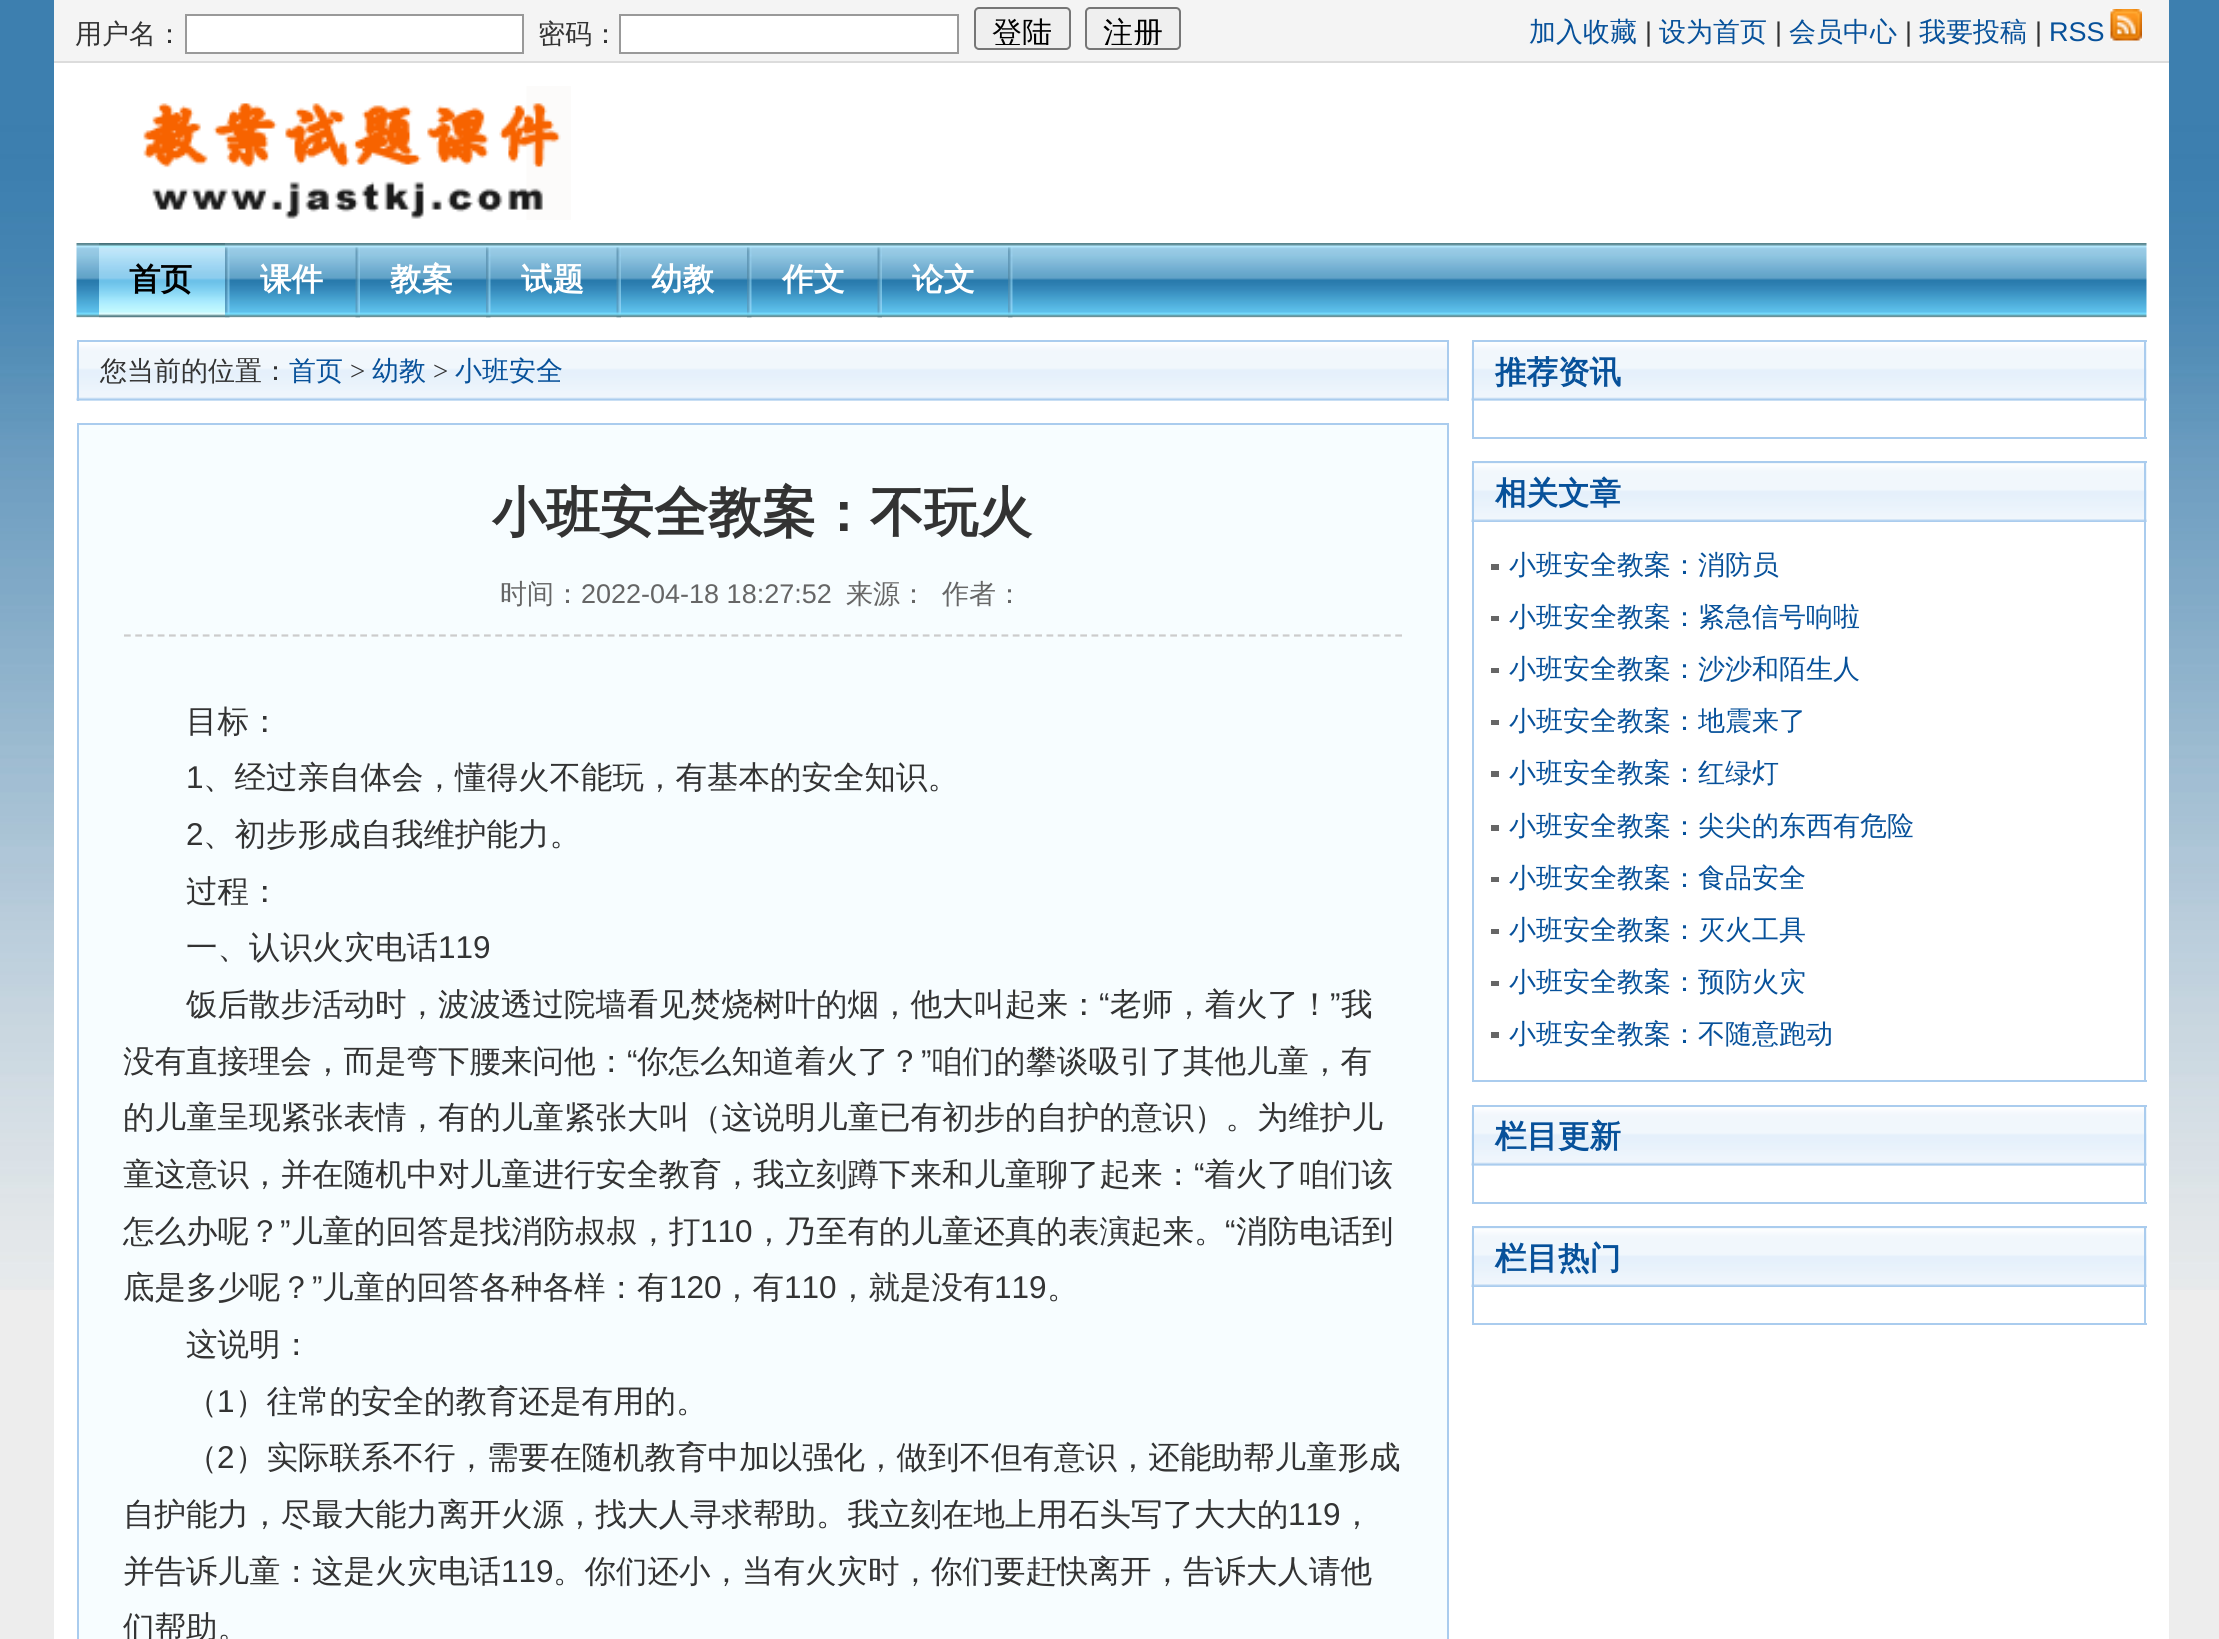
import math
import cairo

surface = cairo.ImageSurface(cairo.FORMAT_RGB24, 2219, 1639)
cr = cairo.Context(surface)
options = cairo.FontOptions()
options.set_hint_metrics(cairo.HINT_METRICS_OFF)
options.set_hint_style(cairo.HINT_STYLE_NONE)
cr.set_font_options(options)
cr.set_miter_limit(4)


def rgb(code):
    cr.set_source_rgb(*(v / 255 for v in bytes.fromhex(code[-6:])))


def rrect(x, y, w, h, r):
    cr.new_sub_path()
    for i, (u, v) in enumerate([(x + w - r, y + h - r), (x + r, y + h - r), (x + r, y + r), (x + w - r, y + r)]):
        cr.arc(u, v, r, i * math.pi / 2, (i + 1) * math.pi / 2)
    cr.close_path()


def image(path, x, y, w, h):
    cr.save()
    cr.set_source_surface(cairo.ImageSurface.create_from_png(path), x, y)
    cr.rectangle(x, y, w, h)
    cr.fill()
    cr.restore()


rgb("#ededed")
cr.paint()
image("img/1.png", 0, 0, 2219, 1290)
for x, y, w, h, color in [
    (54, 63, 2115, 1576, "#ffffff"),
    (54, 61, 2115, 2, "#dcdcdc"),
    (54, 0, 2115, 61, "#f4f4f4"),
]:
    rgb(color)
    cr.rectangle(x, y, w, h)
    cr.fill()
rgb("#ffffff")
cr.rectangle(186, 15, 337, 38)
cr.fill_preserve()
rgb("#999999")
cr.stroke()
rgb("#ffffff")
cr.rectangle(620, 15, 338, 38)
cr.fill_preserve()
rgb("#999999")
cr.stroke()
rgb("#efefef")
rrect(975, 8, 95, 41, 4)
cr.fill_preserve()
rgb("#767676")
cr.stroke()
rgb("#efefef")
rrect(1086, 8, 94, 41, 4)
cr.fill_preserve()
rgb("#767676")
cr.stroke()
image("img/2.png", 2110, 9, 32, 32)
image("img/3.png", 143, 86, 428, 134)
image("img/4.png", 76, 243, 2071, 75)
image("img/5.png", 225, 247, 5, 71)
image("img/6.png", 99, 243, 126, 75)
image("img/7.png", 355, 247, 5, 71)
image("img/5.png", 486, 247, 5, 71)
image("img/7.png", 616, 247, 5, 71)
image("img/5.png", 747, 247, 5, 71)
image("img/7.png", 877, 247, 5, 71)
image("img/5.png", 1008, 247, 5, 71)
rgb("#e9f2fb")
cr.rectangle(79, 400, 1368, 1)
cr.fill()
image("img/8.png", 76, 342, 1371, 59)
for x, y, w, h, color in [
    (77, 340, 1372, 2, "#aaccee"),
    (1447, 340, 2, 61, "#aaccee"),
    (77, 340, 2, 61, "#aaccee"),
]:
    rgb(color)
    cr.rectangle(x, y, w, h)
    cr.fill()
rgb("#f7fdff")
cr.rectangle(78, 424, 1370, 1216)
cr.fill_preserve()
rgb("#aaccee")
cr.stroke()
cr.new_path()
cr.move_to(124, 635.5)
cr.line_to(1402, 635.5)
rgb("#cccccc")
cr.set_line_width(2.2)
cr.set_dash([6.75, 4.5])
cr.stroke()
rgb("#e9f2fb")
cr.rectangle(1474, 342, 673, 59)
cr.fill()
image("img/9.png", 1471, 342, 676, 59)
for x, y, w, h, color in [
    (1472, 340, 675, 2, "#aaccee"),
    (2144, 340, 2, 99, "#aaccee"),
    (1472, 340, 2, 61, "#aaccee"),
    (1472, 437, 675, 2, "#aaccee"),
    (1472, 401, 2, 38, "#aaccee"),
    (1474, 463, 673, 59, "#e9f2fb"),
]:
    rgb(color)
    cr.rectangle(x, y, w, h)
    cr.fill()
image("img/10.png", 1471, 463, 676, 59)
for x, y, w, h, color in [
    (1472, 461, 675, 2, "#aaccee"),
    (2144, 461, 2, 621, "#aaccee"),
    (1472, 461, 2, 61, "#aaccee"),
    (1472, 1080, 675, 2, "#aaccee"),
    (1472, 522, 2, 560, "#aaccee"),
    (1491, 564, 8, 6, "#666666"),
    (1491, 616, 8, 5, "#666666"),
    (1491, 668, 8, 5, "#666666"),
    (1491, 720, 8, 5, "#666666"),
    (1491, 771, 8, 6, "#666666"),
    (1491, 825, 8, 6, "#666666"),
    (1491, 877, 8, 5, "#666666"),
    (1491, 929, 8, 5, "#666666"),
    (1491, 981, 8, 5, "#666666"),
    (1491, 1032, 8, 6, "#666666"),
    (1474, 1107, 673, 59, "#e9f2fb"),
]:
    rgb(color)
    cr.rectangle(x, y, w, h)
    cr.fill()
image("img/9.png", 1471, 1107, 676, 59)
for x, y, w, h, color in [
    (1472, 1105, 675, 2, "#aaccee"),
    (2144, 1105, 2, 99, "#aaccee"),
    (1472, 1105, 2, 61, "#aaccee"),
    (1472, 1202, 675, 2, "#aaccee"),
    (1472, 1166, 2, 38, "#aaccee"),
    (1474, 1228, 673, 59, "#e9f2fb"),
]:
    rgb(color)
    cr.rectangle(x, y, w, h)
    cr.fill()
image("img/11.png", 1471, 1228, 676, 59)
for x, y, w, h, color in [
    (1472, 1226, 675, 2, "#aaccee"),
    (2144, 1226, 2, 99, "#aaccee"),
    (1472, 1226, 2, 61, "#aaccee"),
    (1472, 1323, 675, 2, "#aaccee"),
    (1472, 1287, 2, 38, "#aaccee"),
]:
    rgb(color)
    cr.rectangle(x, y, w, h)
    cr.fill()
cr.select_font_face("WenQuanYi Zen Hei Medium")
cr.set_font_size(27)
rgb("#333333")
cr.move_to(75, 43)
cr.show_text("用户名：")
cr.move_to(538, 43)
cr.show_text("密码：")
cr.save()
cr.rectangle(979, 11, 88, 34)
cr.clip()
cr.set_font_size(30)
rgb("#000000")
cr.move_to(992, 43)
cr.show_text("登陆")
cr.restore()
cr.save()
cr.rectangle(1089, 11, 88, 34)
cr.clip()
cr.set_font_size(30)
rgb("#000000")
cr.move_to(1103, 43)
cr.show_text("注册")
cr.restore()
rgb("#07519a")
cr.move_to(1529, 41)
cr.show_text("加入收藏")
cr.select_font_face("Liberation Sans")
rgb("#333333")
cr.move_to(1645, 41)
cr.show_text("|")
cr.select_font_face("WenQuanYi Zen Hei Medium")
rgb("#07519a")
cr.move_to(1659, 41)
cr.show_text("设为首页")
cr.select_font_face("Liberation Sans")
rgb("#333333")
cr.move_to(1775, 41)
cr.show_text("|")
cr.select_font_face("WenQuanYi Zen Hei Medium")
rgb("#07519a")
cr.move_to(1789, 41)
cr.show_text("会员中心")
cr.select_font_face("Liberation Sans")
rgb("#333333")
cr.move_to(1905, 41)
cr.show_text("|")
cr.select_font_face("WenQuanYi Zen Hei Medium")
rgb("#07519a")
cr.move_to(1919, 41)
cr.show_text("我要投稿")
cr.select_font_face("Liberation Sans")
rgb("#333333")
cr.move_to(2035, 41)
cr.show_text("|")
rgb("#07519a")
cr.move_to(2049, 41)
cr.show_text("RSS")
cr.select_font_face("WenQuanYi Zen Hei", cairo.FONT_SLANT_NORMAL, cairo.FONT_WEIGHT_BOLD)
cr.set_font_size(31.5)
rgb("#000000")
cr.move_to(129, 290)
cr.show_text("首页")
rgb("#ffffff")
for x, y, s in [
    (260, 290, "课件"),
    (390, 290, "教案"),
    (521, 290, "试题"),
    (651, 290, "幼教"),
    (782, 290, "作文"),
    (912, 290, "论文"),
]:
    cr.move_to(x, y)
    cr.show_text(s)
cr.select_font_face("WenQuanYi Zen Hei Medium")
cr.set_font_size(27)
rgb("#333333")
cr.move_to(100, 380)
cr.show_text("您当前的位置：")
rgb("#07519a")
cr.move_to(289, 380)
cr.show_text("首页")
cr.select_font_face("Liberation Serif")
rgb("#333333")
cr.move_to(350, 380)
cr.show_text(">")
cr.select_font_face("WenQuanYi Zen Hei Medium")
rgb("#07519a")
cr.move_to(372, 380)
cr.show_text("幼教")
cr.select_font_face("Liberation Serif")
rgb("#333333")
cr.move_to(433, 380)
cr.show_text(">")
cr.select_font_face("WenQuanYi Zen Hei Medium")
rgb("#07519a")
cr.move_to(455, 380)
cr.show_text("小班安全")
cr.select_font_face("WenQuanYi Zen Hei", cairo.FONT_SLANT_NORMAL, cairo.FONT_WEIGHT_BOLD)
cr.set_font_size(54)
rgb("#333333")
cr.move_to(492, 531)
cr.show_text("小班安全教案：不玩火")
cr.select_font_face("WenQuanYi Zen Hei Medium")
cr.set_font_size(27)
rgb("#666666")
cr.move_to(500, 603)
cr.show_text("时间：")
cr.select_font_face("Liberation Sans")
cr.move_to(581, 603)
cr.show_text("2022-04-18 18:27:52")
cr.select_font_face("WenQuanYi Zen Hei Medium")
cr.move_to(846, 603)
cr.show_text("来源：")
cr.move_to(942, 603)
cr.show_text("作者：")
cr.set_font_size(31.5)
rgb("#333333")
cr.move_to(186, 732)
cr.show_text("目标：")
cr.select_font_face("Liberation Sans")
cr.move_to(186, 788)
cr.show_text("1")
cr.select_font_face("WenQuanYi Zen Hei Medium")
cr.move_to(203, 788)
cr.show_text("、经过亲自体会，懂得火不能玩，有基本的安全知识。")
cr.select_font_face("Liberation Sans")
cr.move_to(186, 845)
cr.show_text("2")
cr.select_font_face("WenQuanYi Zen Hei Medium")
for x, y, s in [
    (203, 845, "、初步形成自我维护能力。"),
    (186, 902, "过程："),
    (186, 958, "一、认识火灾电话"),
]:
    cr.move_to(x, y)
    cr.show_text(s)
cr.select_font_face("Liberation Sans")
cr.move_to(438, 958)
cr.show_text("119")
cr.select_font_face("WenQuanYi Zen Hei Medium")
cr.move_to(186, 1015)
cr.show_text("饭后散步活动时，波波透过院墙看见焚烧树叶的烟，他大叫起来：")
cr.select_font_face("Liberation Sans")
cr.move_to(1099, 1015)
cr.show_text("“")
cr.select_font_face("WenQuanYi Zen Hei Medium")
cr.move_to(1110, 1015)
cr.show_text("老师，着火了！")
cr.select_font_face("Liberation Sans")
cr.move_to(1330, 1015)
cr.show_text("”")
cr.select_font_face("WenQuanYi Zen Hei Medium")
cr.move_to(1341, 1015)
cr.show_text("我")
cr.move_to(123, 1072)
cr.show_text("没有直接理会，而是弯下腰来问他：")
cr.select_font_face("Liberation Sans")
cr.move_to(627, 1072)
cr.show_text("“")
cr.select_font_face("WenQuanYi Zen Hei Medium")
cr.move_to(637, 1072)
cr.show_text("你怎么知道着火了？")
cr.select_font_face("Liberation Sans")
cr.move_to(921, 1072)
cr.show_text("”")
cr.select_font_face("WenQuanYi Zen Hei Medium")
for x, y, s in [
    (931, 1072, "咱们的攀谈吸引了其他儿童，有"),
    (123, 1128, "的儿童呈现紧张表情，有的儿童紧张大叫（这说明儿童已有初步的自护的意识）。为维护儿"),
    (123, 1185, "童这意识，并在随机中对儿童进行安全教育，我立刻蹲下来和儿童聊了起来："),
]:
    cr.move_to(x, y)
    cr.show_text(s)
cr.select_font_face("Liberation Sans")
cr.move_to(1194, 1185)
cr.show_text("“")
cr.select_font_face("WenQuanYi Zen Hei Medium")
cr.move_to(1204, 1185)
cr.show_text("着火了咱们该")
cr.move_to(123, 1242)
cr.show_text("怎么办呢？")
cr.select_font_face("Liberation Sans")
cr.move_to(280, 1242)
cr.show_text("”")
cr.select_font_face("WenQuanYi Zen Hei Medium")
cr.move_to(291, 1242)
cr.show_text("儿童的回答是找消防叔叔，打")
cr.select_font_face("Liberation Sans")
cr.move_to(700, 1242)
cr.show_text("110")
cr.select_font_face("WenQuanYi Zen Hei Medium")
cr.move_to(753, 1242)
cr.show_text("，乃至有的儿童还真的表演起来。")
cr.select_font_face("Liberation Sans")
cr.move_to(1225, 1242)
cr.show_text("“")
cr.select_font_face("WenQuanYi Zen Hei Medium")
cr.move_to(1236, 1242)
cr.show_text("消防电话到")
cr.move_to(123, 1298)
cr.show_text("底是多少呢？")
cr.select_font_face("Liberation Sans")
cr.move_to(312, 1298)
cr.show_text("”")
cr.select_font_face("WenQuanYi Zen Hei Medium")
cr.move_to(322, 1298)
cr.show_text("儿童的回答各种各样：有")
cr.select_font_face("Liberation Sans")
cr.move_to(669, 1298)
cr.show_text("120")
cr.select_font_face("WenQuanYi Zen Hei Medium")
cr.move_to(721, 1298)
cr.show_text("，有")
cr.select_font_face("Liberation Sans")
cr.move_to(784, 1298)
cr.show_text("110")
cr.select_font_face("WenQuanYi Zen Hei Medium")
cr.move_to(837, 1298)
cr.show_text("，就是没有")
cr.select_font_face("Liberation Sans")
cr.move_to(994, 1298)
cr.show_text("119")
cr.select_font_face("WenQuanYi Zen Hei Medium")
for x, y, s in [
    (1047, 1298, "。"),
    (186, 1355, "这说明："),
    (186, 1412, "（"),
]:
    cr.move_to(x, y)
    cr.show_text(s)
cr.select_font_face("Liberation Sans")
cr.move_to(217, 1412)
cr.show_text("1")
cr.select_font_face("WenQuanYi Zen Hei Medium")
cr.move_to(235, 1412)
cr.show_text("）往常的安全的教育还是有用的。")
cr.move_to(186, 1468)
cr.show_text("（")
cr.select_font_face("Liberation Sans")
cr.move_to(217, 1468)
cr.show_text("2")
cr.select_font_face("WenQuanYi Zen Hei Medium")
cr.move_to(235, 1468)
cr.show_text("）实际联系不行，需要在随机教育中加以强化，做到不但有意识，还能助帮儿童形成")
cr.move_to(123, 1525)
cr.show_text("自护能力，尽最大能力离开火源，找大人寻求帮助。我立刻在地上用石头写了大大的")
cr.select_font_face("Liberation Sans")
cr.move_to(1288, 1525)
cr.show_text("119")
cr.select_font_face("WenQuanYi Zen Hei Medium")
cr.move_to(1341, 1525)
cr.show_text("，")
cr.move_to(123, 1582)
cr.show_text("并告诉儿童：这是火灾电话")
cr.select_font_face("Liberation Sans")
cr.move_to(501, 1582)
cr.show_text("119")
cr.select_font_face("WenQuanYi Zen Hei Medium")
cr.move_to(553, 1582)
cr.show_text("。你们还小，当有火灾时，你们要赶快离开，告诉大人请他")
cr.move_to(123, 1638)
cr.show_text("们帮助。")
cr.select_font_face("WenQuanYi Zen Hei", cairo.FONT_SLANT_NORMAL, cairo.FONT_WEIGHT_BOLD)
rgb("#07519a")
cr.move_to(1495, 383)
cr.show_text("推荐资讯")
cr.move_to(1495, 504)
cr.show_text("相关文章")
cr.select_font_face("WenQuanYi Zen Hei Medium")
cr.set_font_size(27)
for x, y, s in [
    (1509, 574, "小班安全教案：消防员"),
    (1509, 626, "小班安全教案：紧急信号响啦"),
    (1509, 678, "小班安全教案：沙沙和陌生人"),
    (1509, 730, "小班安全教案：地震来了"),
    (1509, 782, "小班安全教案：红绿灯"),
    (1509, 835, "小班安全教案：尖尖的东西有危险"),
    (1509, 887, "小班安全教案：食品安全"),
    (1509, 939, "小班安全教案：灭火工具"),
    (1509, 991, "小班安全教案：预防火灾"),
    (1509, 1043, "小班安全教案：不随意跑动"),
]:
    cr.move_to(x, y)
    cr.show_text(s)
cr.select_font_face("WenQuanYi Zen Hei", cairo.FONT_SLANT_NORMAL, cairo.FONT_WEIGHT_BOLD)
cr.set_font_size(31.5)
cr.move_to(1495, 1147)
cr.show_text("栏目更新")
cr.move_to(1495, 1269)
cr.show_text("栏目热门")
surface.write_to_png("page.png")
